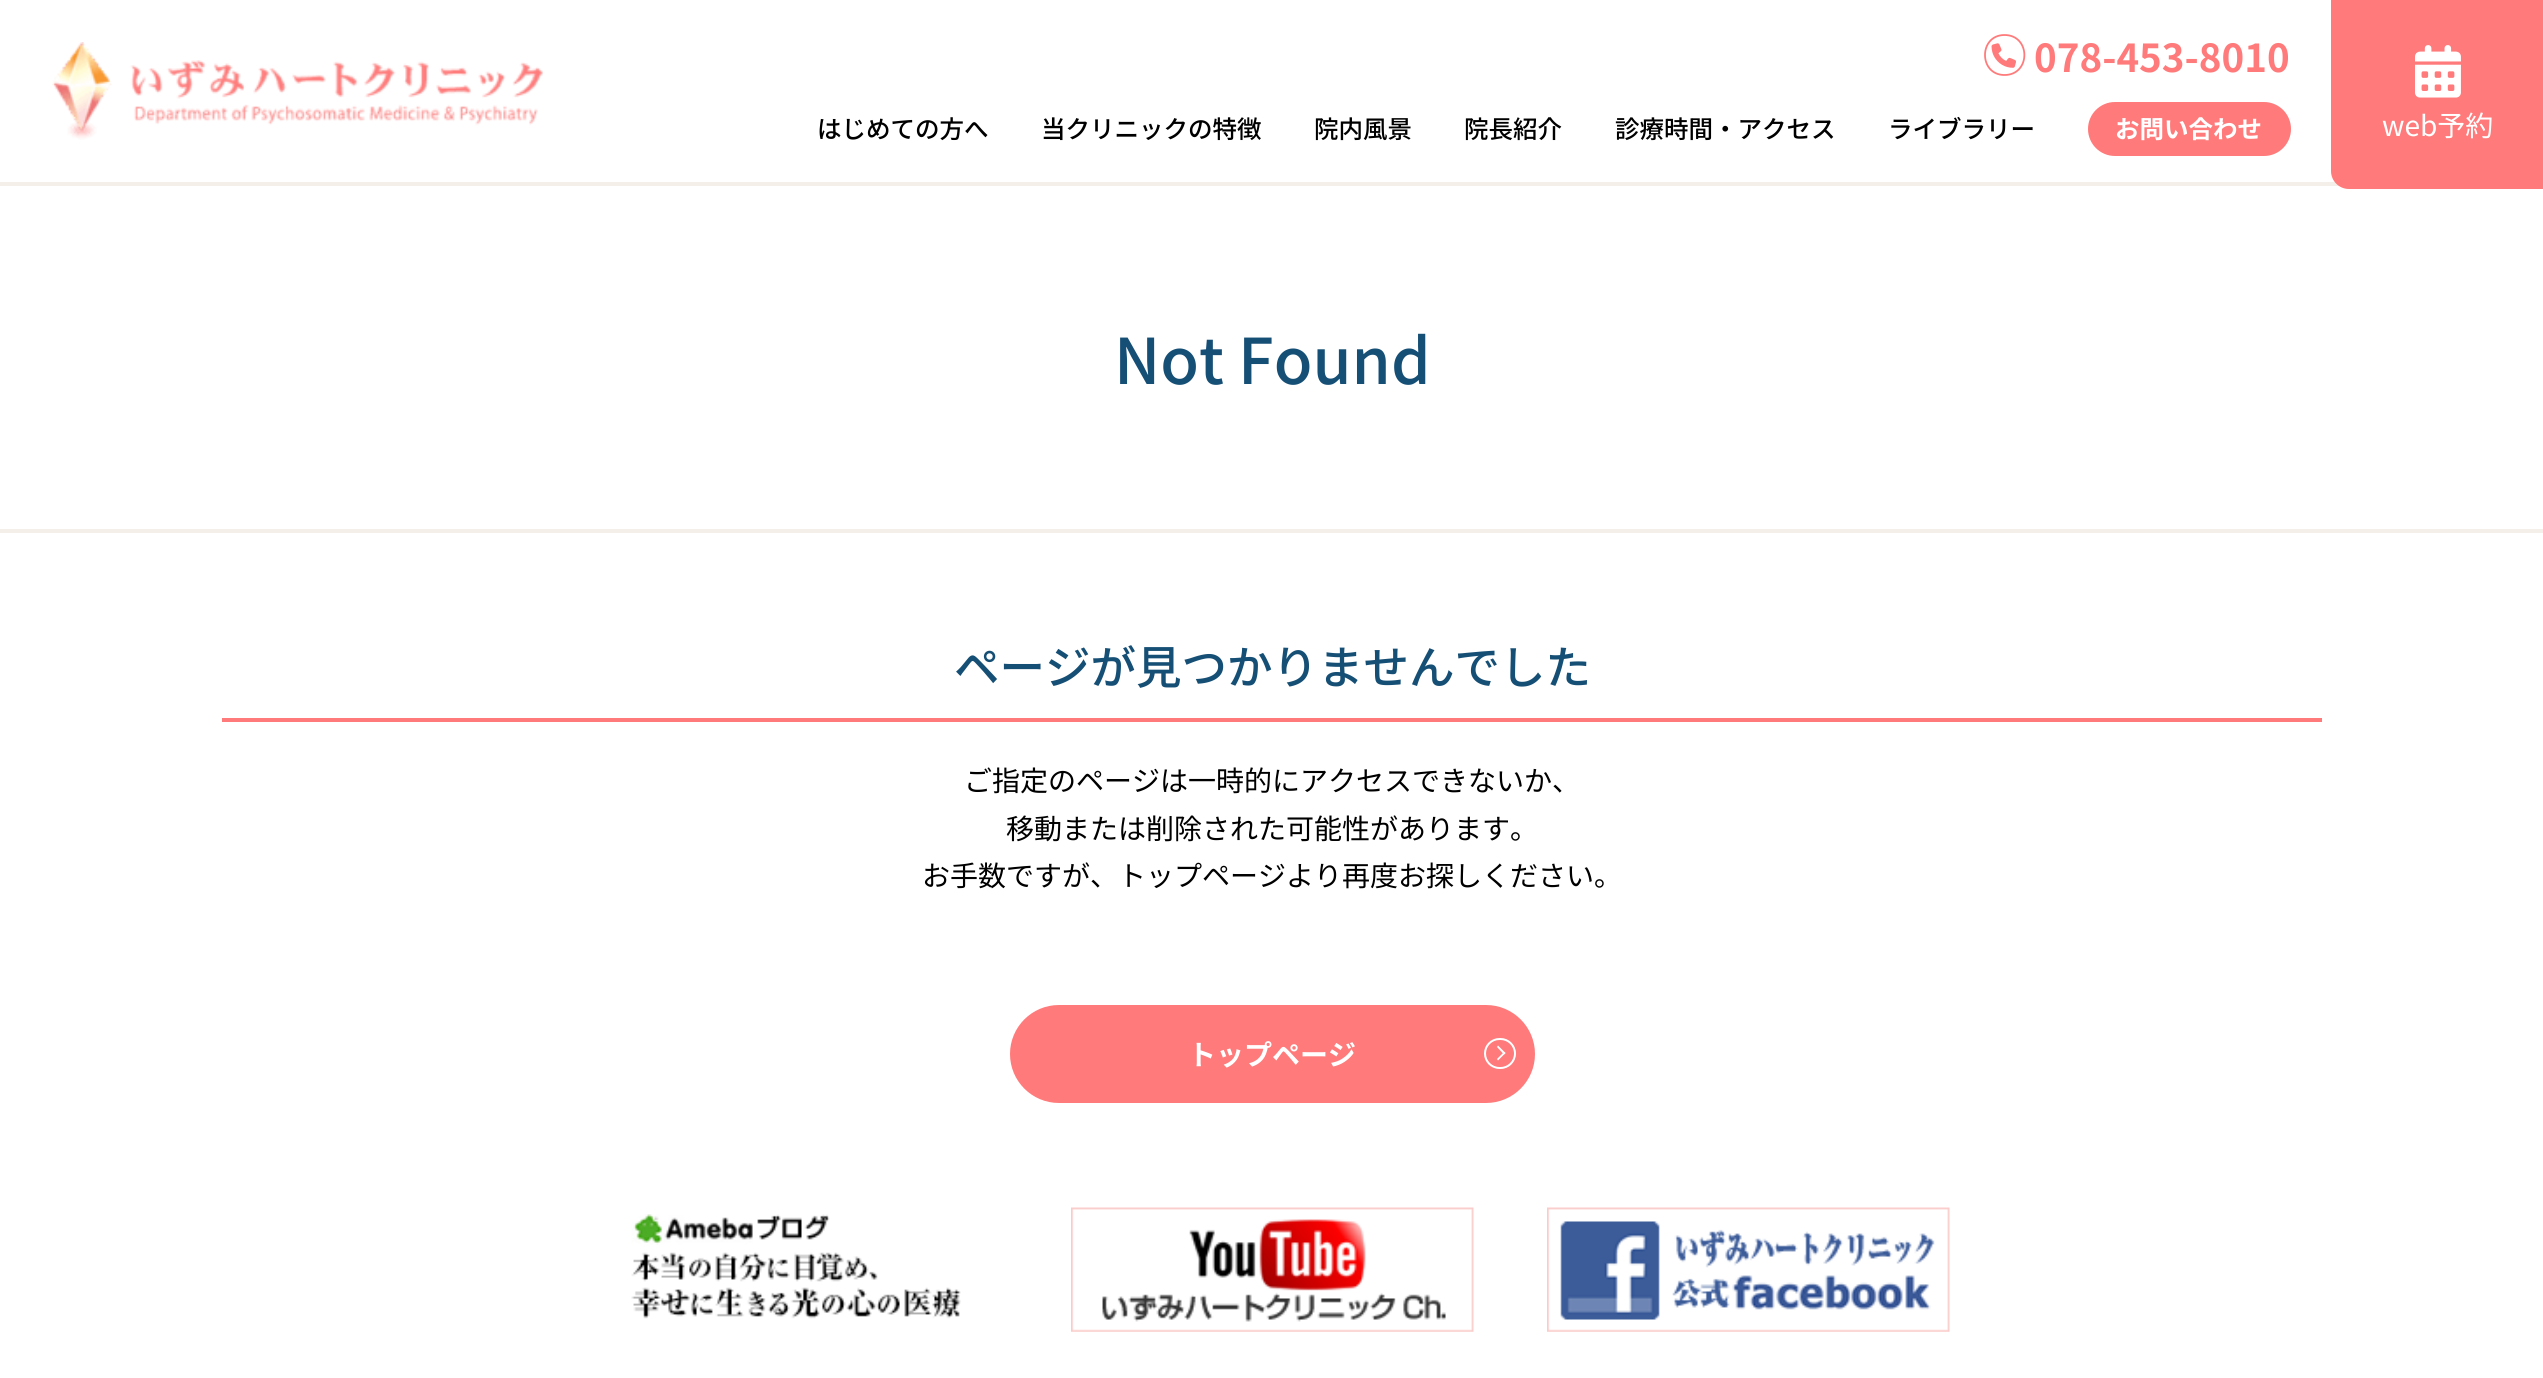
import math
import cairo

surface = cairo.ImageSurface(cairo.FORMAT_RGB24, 2543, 1378)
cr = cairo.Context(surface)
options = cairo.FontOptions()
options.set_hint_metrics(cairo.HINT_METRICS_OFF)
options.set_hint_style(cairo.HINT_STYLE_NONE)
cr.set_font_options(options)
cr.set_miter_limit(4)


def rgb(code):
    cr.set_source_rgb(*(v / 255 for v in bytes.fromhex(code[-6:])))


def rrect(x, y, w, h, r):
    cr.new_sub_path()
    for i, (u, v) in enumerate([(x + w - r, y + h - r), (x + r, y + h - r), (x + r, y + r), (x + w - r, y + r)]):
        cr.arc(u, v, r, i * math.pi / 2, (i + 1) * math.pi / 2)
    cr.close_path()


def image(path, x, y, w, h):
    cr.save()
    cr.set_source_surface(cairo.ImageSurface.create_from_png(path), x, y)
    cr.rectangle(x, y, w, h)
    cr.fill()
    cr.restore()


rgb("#ffffff")
cr.paint()
image("img/1.png", 52, 42, 491, 98)
cr.new_path()
cr.move_to(2004.5, 35)
cr.curve_to(1978.5, 35, 1978.5, 75, 2004.5, 75)
cr.curve_to(2031, 75, 2031, 35, 2004.5, 35)
cr.close_path()
rgb("#ff7b7b")
cr.set_line_width(1.8)
cr.stroke()
image("img/2.png", 1991, 43, 25, 25)
rrect(2089, 103, 201, 52, 26)
cr.fill_preserve()
cr.set_line_width(2)
cr.stroke()
rgb("#f4efe8")
cr.rectangle(0, 182, 2339, 4)
cr.fill()
rgb("#ff7b7b")
cr.new_path()
cr.move_to(2331, 0)
cr.line_to(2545, 0)
cr.line_to(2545, 189)
cr.line_to(2349, 189)
cr.curve_to(2339, 189, 2331, 181, 2331, 171)
cr.close_path()
cr.fill()
image("img/3.png", 2415, 45, 46, 53)
rgb("#f4efe8")
cr.rectangle(0, 529, 2543, 4)
cr.fill()
rgb("#ff7b7b")
cr.rectangle(222, 718, 2100, 4)
cr.fill()
rrect(1011, 1006, 523, 96, 48)
cr.fill_preserve()
cr.stroke()
rrect(1485, 1039, 30, 29, 14.5)
rgb("#ffffff")
cr.stroke()
cr.new_path()
cr.move_to(1498, 1045.5)
cr.line_to(1505.5, 1053)
cr.line_to(1504, 1054.5)
cr.line_to(1497, 1047)
cr.close_path()
cr.fill()
cr.new_path()
cr.move_to(1504, 1052)
cr.line_to(1505.5, 1053)
cr.line_to(1498, 1060.5)
cr.line_to(1497, 1059)
cr.close_path()
cr.fill()
image("img/4.png", 631, 1214, 330, 105)
image("img/5.png", 1071, 1207, 403, 125)
image("img/6.png", 1547, 1207, 403, 125)
cr.select_font_face("Noto Sans JP", cairo.FONT_SLANT_NORMAL, cairo.FONT_WEIGHT_BOLD)
cr.set_font_size(38.5)
rgb("#ff7b7b")
cr.move_to(2034, 72)
cr.show_text("078-453-8010")
cr.select_font_face("Noto Sans JP Medium")
cr.set_font_size(24.5)
rgb("#000000")
for x, y, s in [
    (817, 138, "はじめての方へ"),
    (1041, 138, "当クリニックの特徴"),
    (1314, 138, "院内風景"),
    (1464, 138, "院長紹介"),
    (1615, 138, "診療時間・アクセス"),
    (1888, 138, "ライブラリー"),
]:
    cr.move_to(x, y)
    cr.show_text(s)
cr.select_font_face("Noto Sans JP", cairo.FONT_SLANT_NORMAL, cairo.FONT_WEIGHT_BOLD)
rgb("#ffffff")
cr.move_to(2115, 138)
cr.show_text("お問い合わせ")
cr.select_font_face("Noto Sans JP")
cr.set_font_size(28)
cr.move_to(2382, 136)
cr.show_text("web予約")
cr.select_font_face("Noto Sans JP Medium")
cr.set_font_size(63)
rgb("#164f75")
cr.move_to(1114, 384)
cr.show_text("Not Found")
cr.set_font_size(45.5)
cr.move_to(954, 684)
cr.show_text("ページが見つかりませんでした")
cr.select_font_face("Noto Sans JP")
cr.set_font_size(28)
rgb("#000000")
for x, y, s in [
    (964, 791, "ご指定のページは一時的にアクセスできないか、"),
    (1006, 839, "移動または削除された可能性があります。"),
    (922, 886, "お手数ですが、トップページより再度お探しください。"),
]:
    cr.move_to(x, y)
    cr.show_text(s)
cr.select_font_face("Noto Sans JP", cairo.FONT_SLANT_NORMAL, cairo.FONT_WEIGHT_BOLD)
rgb("#ffffff")
cr.move_to(1188, 1065)
cr.show_text("トップページ")
surface.write_to_png("page.png")
